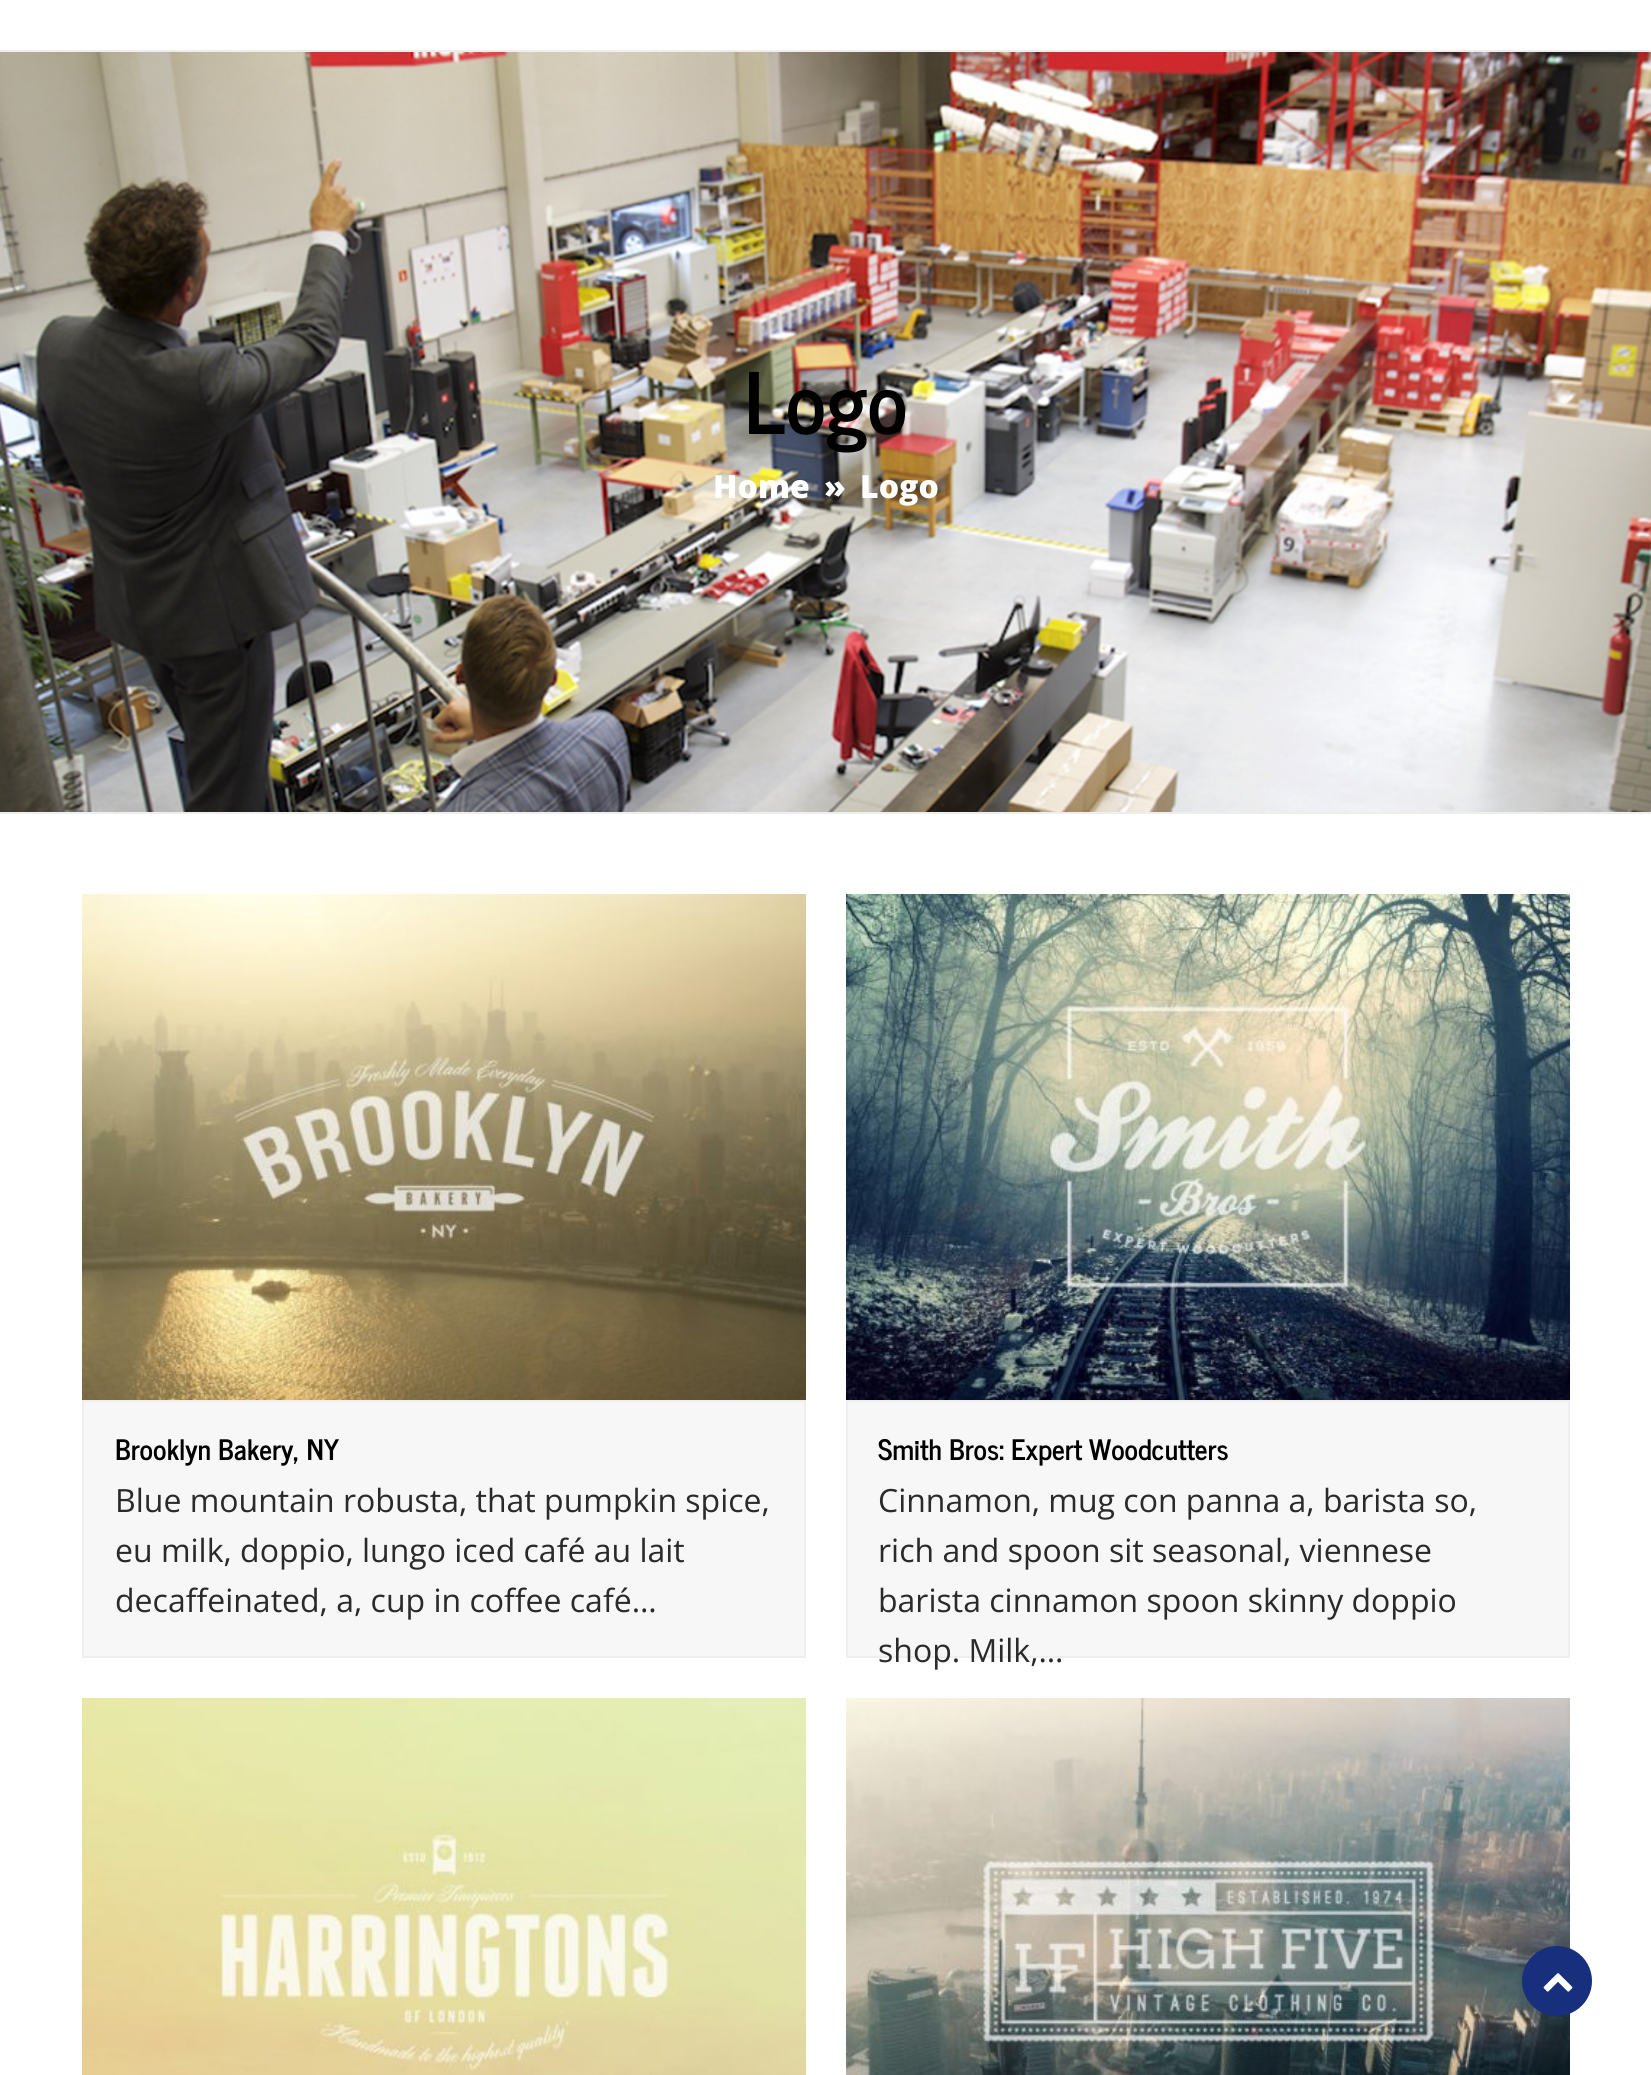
import math
import cairo

surface = cairo.ImageSurface(cairo.FORMAT_RGB24, 1651, 2075)
cr = cairo.Context(surface)
options = cairo.FontOptions()
options.set_hint_metrics(cairo.HINT_METRICS_OFF)
options.set_hint_style(cairo.HINT_STYLE_NONE)
cr.set_font_options(options)
cr.set_miter_limit(4)


def rgb(code):
    cr.set_source_rgb(*(v / 255 for v in bytes.fromhex(code[-6:])))


def image(path, x, y, w, h):
    cr.save()
    cr.set_source_surface(cairo.ImageSurface.create_from_png(path), x, y)
    cr.rectangle(x, y, w, h)
    cr.fill()
    cr.restore()


rgb("#ffffff")
cr.paint()
image("img/1.png", 0, 52, 1651, 760)
rgb("#eeeeee")
cr.rectangle(0, 50, 1651, 2)
cr.fill()
cr.rectangle(0, 812, 1651, 2)
cr.fill()
image("img/2.png", 82, 894, 724, 506)
rgb("#f7f7f7")
cr.rectangle(83, 1401, 722, 256)
cr.fill_preserve()
rgb("#eeeeee")
cr.stroke()
image("img/3.png", 846, 894, 724, 506)
rgb("#f7f7f7")
cr.rectangle(847, 1401, 722, 256)
cr.fill_preserve()
rgb("#eeeeee")
cr.stroke()
image("img/4.png", 82, 1698, 724, 377)
image("img/5.png", 846, 1698, 724, 377)
rgb("#172f7c")
cr.arc(1557, 1981, 35, 0, 2 * math.pi)
cr.fill()
image("img/6.png", 1543, 1973, 30, 19)
cr.select_font_face("News Cycle", cairo.FONT_SLANT_NORMAL, cairo.FONT_WEIGHT_BOLD)
cr.set_font_size(84)
rgb("#000000")
cr.move_to(744, 434)
cr.show_text("Logo")
cr.select_font_face("Open Sans ExtraBold")
cr.set_font_size(32)
rgb("#ffffff")
for x, y, s in [
    (713, 498, "Home"),
    (824, 498, "»"),
    (860, 498, "Logo"),
]:
    cr.move_to(x, y)
    cr.show_text(s)
cr.select_font_face("News Cycle", cairo.FONT_SLANT_NORMAL, cairo.FONT_WEIGHT_BOLD)
cr.set_font_size(28)
rgb("#000000")
cr.move_to(115, 1460)
cr.show_text("Brooklyn Bakery, NY")
cr.select_font_face("Open Sans")
cr.set_font_size(32)
rgb("#2a2a2a")
for x, y, s in [
    (115, 1512, "Blue mountain robusta, that pumpkin spice,"),
    (115, 1562, "eu milk, doppio, lungo iced café au lait"),
    (115, 1612, "decaffeinated, a, cup in coffee café…"),
]:
    cr.move_to(x, y)
    cr.show_text(s)
cr.select_font_face("News Cycle", cairo.FONT_SLANT_NORMAL, cairo.FONT_WEIGHT_BOLD)
cr.set_font_size(28)
rgb("#000000")
cr.move_to(878, 1460)
cr.show_text("Smith Bros: Expert Woodcutters")
cr.select_font_face("Open Sans")
cr.set_font_size(32)
rgb("#2a2a2a")
for x, y, s in [
    (878, 1512, "Cinnamon, mug con panna a, barista so,"),
    (878, 1562, "rich and spoon sit seasonal, viennese"),
    (878, 1612, "barista cinnamon spoon skinny doppio"),
    (878, 1662, "shop. Milk,…"),
]:
    cr.move_to(x, y)
    cr.show_text(s)
surface.write_to_png("page.png")
